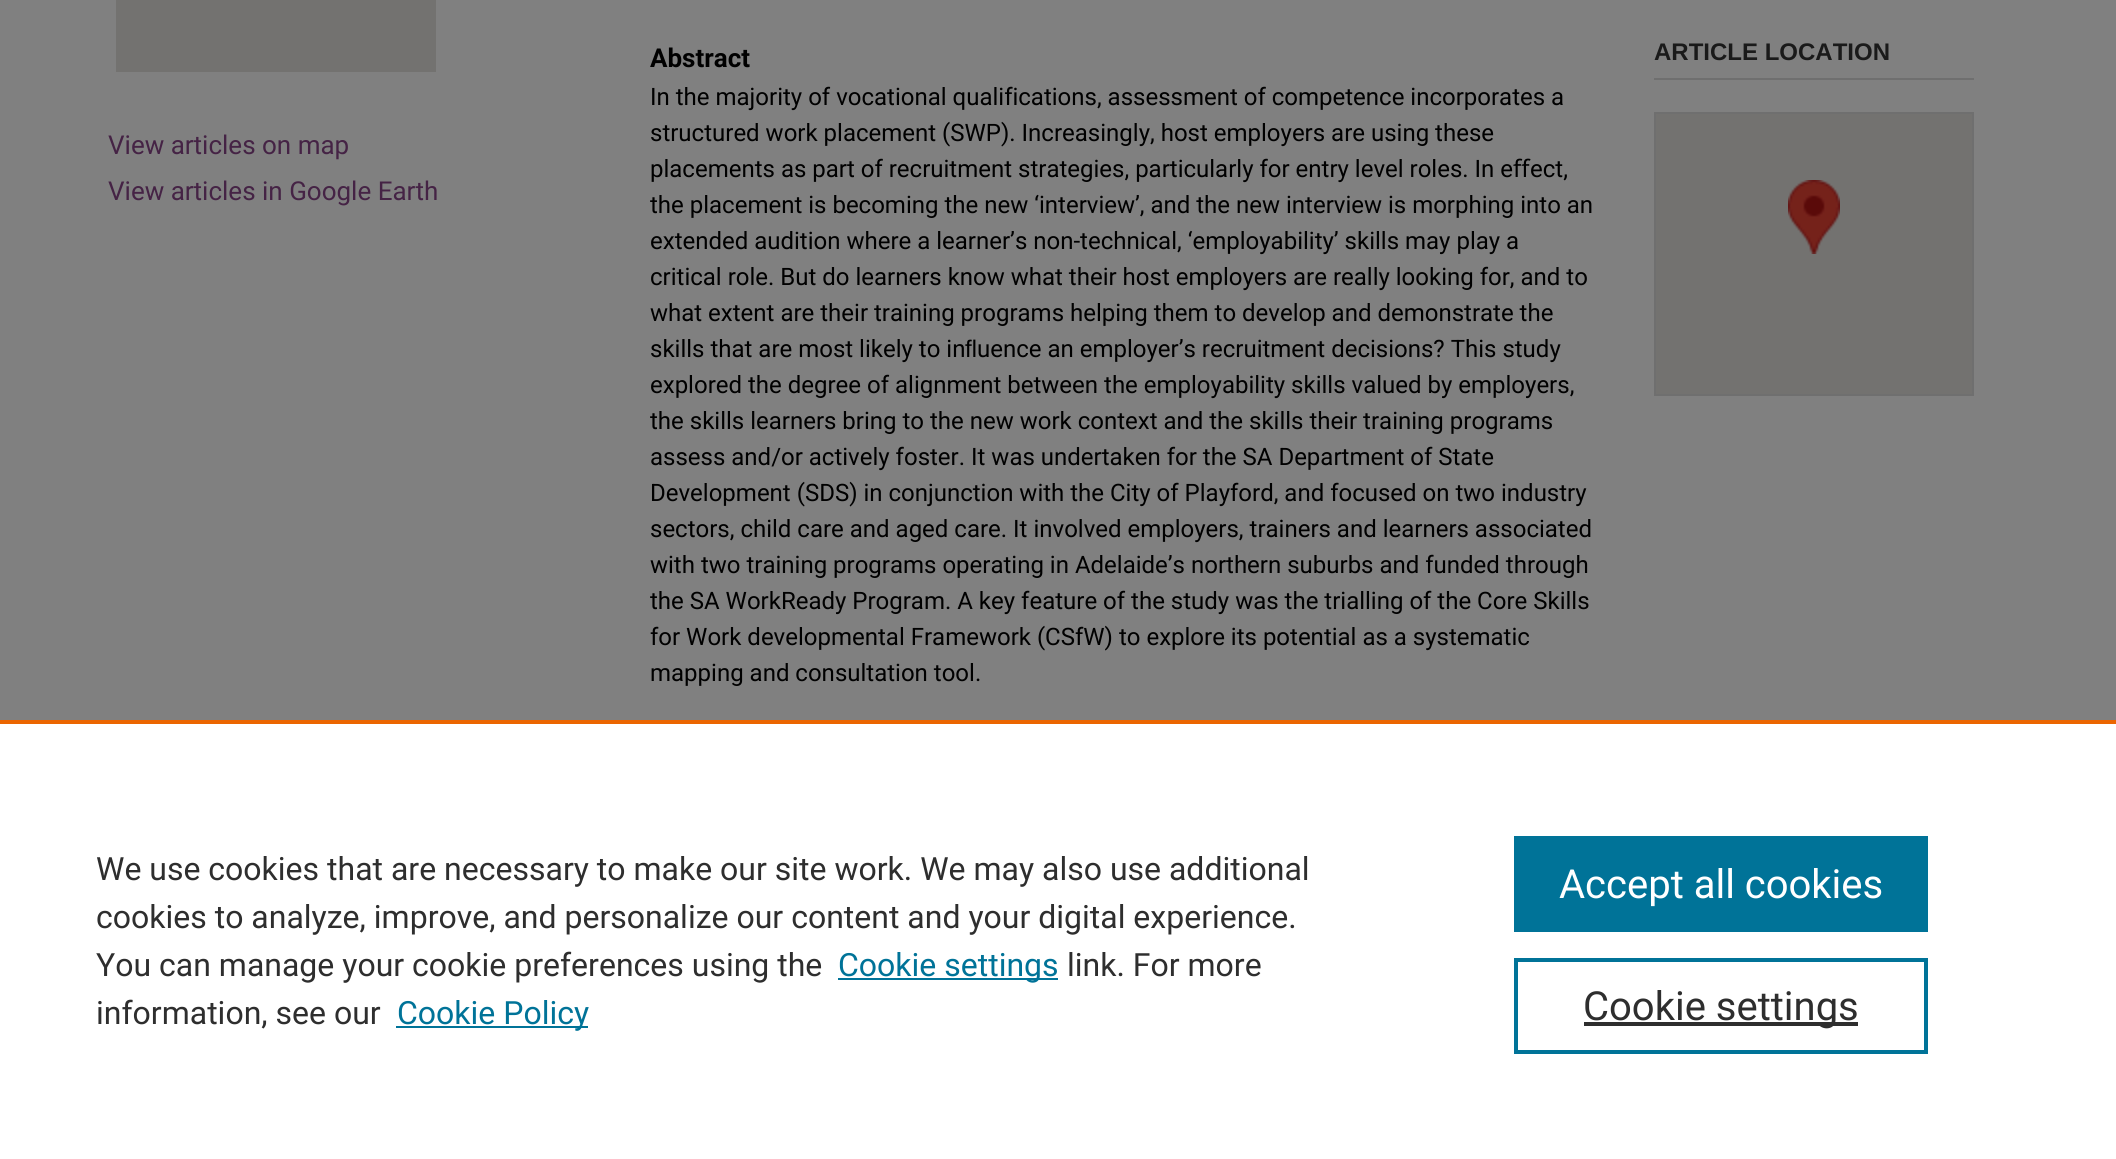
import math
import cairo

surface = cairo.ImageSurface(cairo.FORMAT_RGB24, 2116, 1159)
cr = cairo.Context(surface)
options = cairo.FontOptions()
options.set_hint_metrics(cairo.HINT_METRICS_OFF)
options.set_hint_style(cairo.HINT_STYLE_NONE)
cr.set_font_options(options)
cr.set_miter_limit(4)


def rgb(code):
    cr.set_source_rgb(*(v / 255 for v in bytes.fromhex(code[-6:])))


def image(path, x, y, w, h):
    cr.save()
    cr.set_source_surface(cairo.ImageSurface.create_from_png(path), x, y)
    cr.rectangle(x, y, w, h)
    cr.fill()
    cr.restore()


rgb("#808080")
cr.paint()
rgb("#737270")
cr.rectangle(116, 0, 320, 72)
cr.fill()
rgb("#6f6f6f")
cr.rectangle(1654, 78, 320, 2)
cr.fill()
cr.rectangle(1655, 113, 318, 282)
cr.stroke()
rgb("#737270")
cr.rectangle(1656, 114, 316, 280)
cr.fill()
image("img/1.png", 1788, 180, 52, 74)
for x, y, w, h, color in [
    (0, 724, 2116, 435, "#ffffff"),
    (0, 720, 2116, 4, "#eb6500"),
    (838, 978, 220, 2, "#007398"),
    (396, 1026, 192, 2, "#007398"),
    (1514, 836, 414, 96, "#007398"),
]:
    rgb(color)
    cr.rectangle(x, y, w, h)
    cr.fill()
cr.rectangle(1516, 960, 410, 92)
cr.set_line_width(4)
cr.stroke()
rgb("#2e2e2e")
cr.rectangle(1584, 1022, 274, 4)
cr.fill()
cr.select_font_face("Roboto")
cr.set_font_size(26)
rgb("#452345")
cr.move_to(108, 154)
cr.show_text("View articles on map")
cr.move_to(108, 200)
cr.show_text("View articles in Google Earth")
cr.select_font_face("Roboto", cairo.FONT_SLANT_NORMAL, cairo.FONT_WEIGHT_BOLD)
rgb("#000000")
cr.move_to(650, 67)
cr.show_text("Abstract")
cr.select_font_face("Roboto")
cr.set_font_size(24)
for x, y, s in [
    (650, 105, "In the majority of vocational qualifications, assessment of competence incorporates a"),
    (650, 141, "structured work placement (SWP). Increasingly, host employers are using these"),
    (650, 177, "placements as part of recruitment strategies, particularly for entry level roles. In e"),
]:
    cr.move_to(x, y)
    cr.show_text(s)
cr.select_font_face("Noto Sans")
cr.move_to(1513, 177)
cr.show_text("ﬀ")
cr.select_font_face("Roboto")
for x, y, s in [
    (1530, 177, "ect,"),
    (650, 213, "the placement is becoming the new ‘interview’, and the new interview is morphing into an"),
    (650, 249, "extended audition where a learner’s non-technical, ‘employability’ skills may play a"),
    (650, 285, "critical role. But do learners know what their host employers are really looking for, and to"),
    (650, 321, "what extent are their training programs helping them to develop and demonstrate the"),
    (650, 357, "skills that are most likely to in"),
]:
    cr.move_to(x, y)
    cr.show_text(s)
cr.select_font_face("Liberation Sans")
cr.move_to(965, 357)
cr.show_text("ﬂ")
cr.select_font_face("Roboto")
for x, y, s in [
    (977, 357, "uence an employer’s recruitment decisions? This study"),
    (650, 393, "explored the degree of alignment between the employability skills valued by employers,"),
    (650, 429, "the skills learners bring to the new work context and the skills their training programs"),
    (650, 465, "assess and/or actively foster. It was undertaken for the SA Department of State"),
    (650, 501, "Development (SDS) in conjunction with the City of Playford, and focused on two industry"),
    (650, 537, "sectors, child care and aged care. It involved employers, trainers and learners associated"),
    (650, 573, "with two training programs operating in Adelaide’s northern suburbs and funded through"),
    (650, 609, "the SA WorkReady Program. A key feature of the study was the trialling of the Core Skills"),
    (650, 645, "for Work developmental Framework (CSfW) to explore its potential as a systematic"),
    (650, 681, "mapping and consultation tool."),
]:
    cr.move_to(x, y)
    cr.show_text(s)
cr.select_font_face("Liberation Sans", cairo.FONT_SLANT_NORMAL, cairo.FONT_WEIGHT_BOLD)
rgb("#1a1a1a")
cr.move_to(1654, 60)
cr.show_text("ARTICLE LOCATION")
cr.select_font_face("Roboto")
cr.set_font_size(32)
rgb("#2e2e2e")
for x, y, s in [
    (96, 880, "We use cookies that are necessary to make our site work. We may also use additional"),
    (96, 928, "cookies to analyze, improve, and personalize our content and your digital experience."),
    (96, 976, "You can manage your cookie preferences using the"),
]:
    cr.move_to(x, y)
    cr.show_text(s)
rgb("#007398")
cr.move_to(838, 976)
cr.show_text("Cookie settings")
rgb("#2e2e2e")
cr.move_to(1067, 976)
cr.show_text("link. For more")
cr.move_to(96, 1024)
cr.show_text("information, see our")
rgb("#007398")
cr.move_to(397, 1024)
cr.show_text("Cookie Policy")
cr.set_font_size(40)
rgb("#ffffff")
cr.move_to(1559, 898)
cr.show_text("Accept all cookies")
rgb("#2e2e2e")
cr.move_to(1583, 1020)
cr.show_text("Cookie settings")
surface.write_to_png("page.png")
